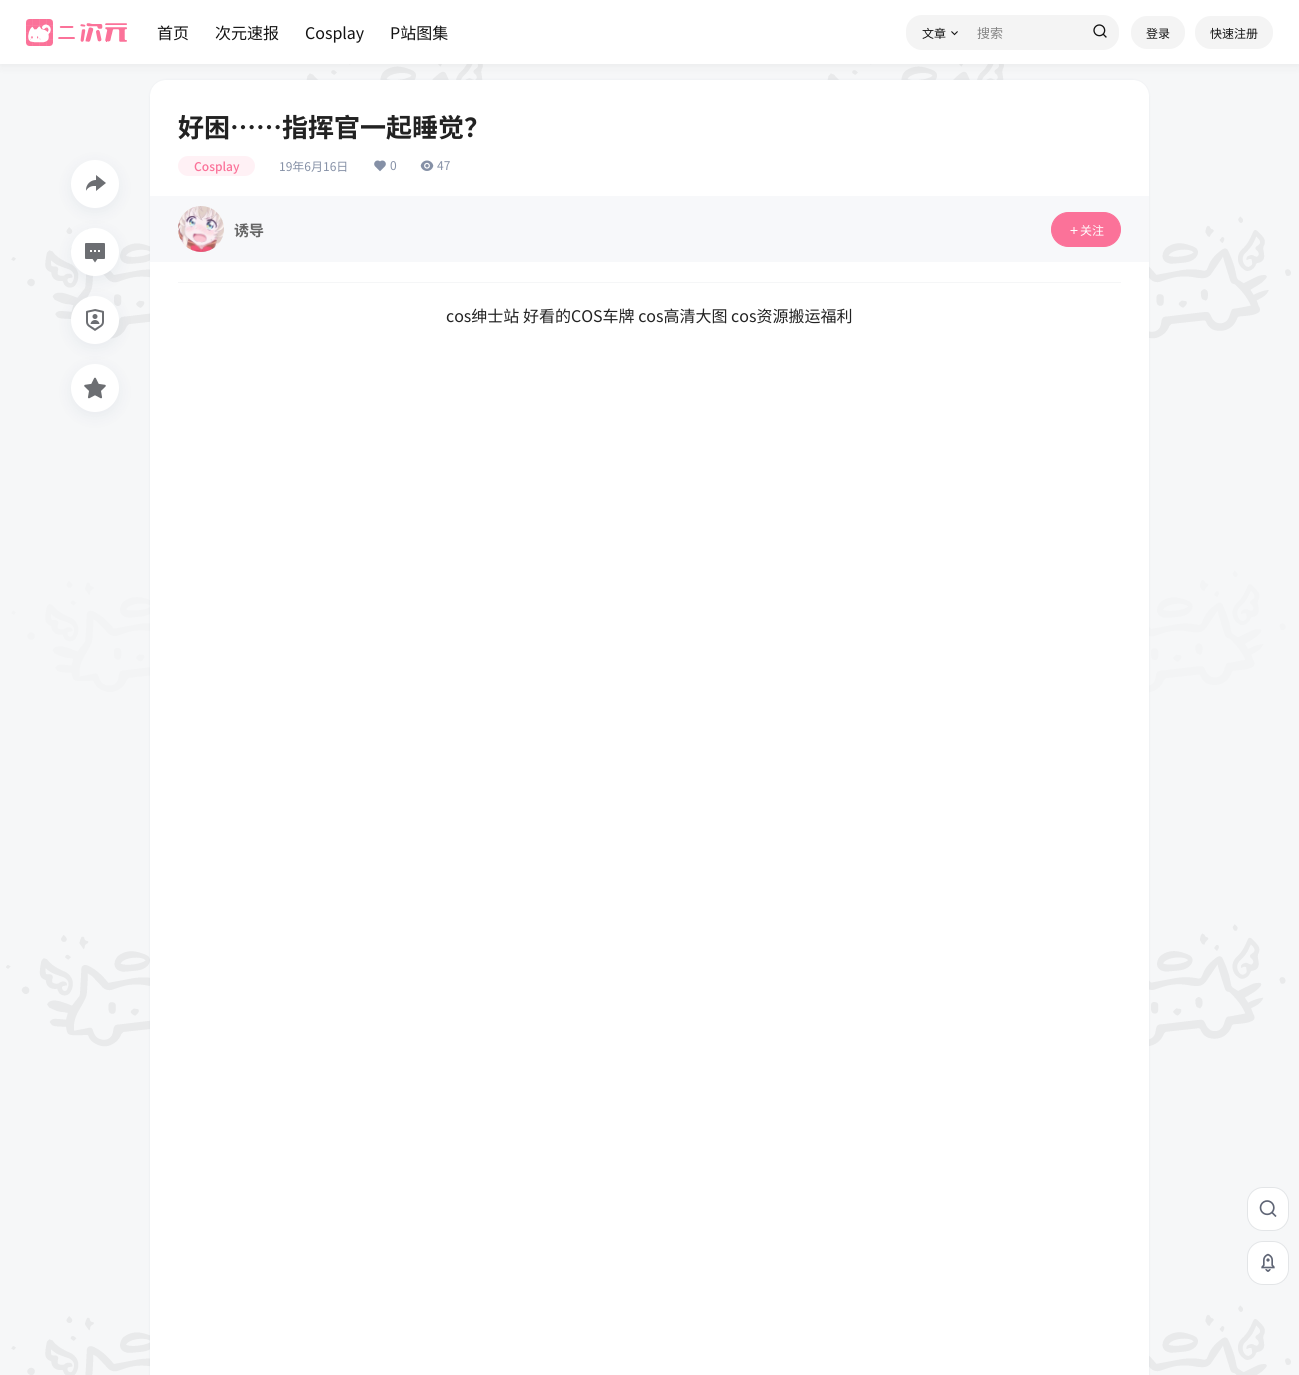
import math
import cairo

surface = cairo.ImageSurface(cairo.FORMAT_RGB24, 1299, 1375)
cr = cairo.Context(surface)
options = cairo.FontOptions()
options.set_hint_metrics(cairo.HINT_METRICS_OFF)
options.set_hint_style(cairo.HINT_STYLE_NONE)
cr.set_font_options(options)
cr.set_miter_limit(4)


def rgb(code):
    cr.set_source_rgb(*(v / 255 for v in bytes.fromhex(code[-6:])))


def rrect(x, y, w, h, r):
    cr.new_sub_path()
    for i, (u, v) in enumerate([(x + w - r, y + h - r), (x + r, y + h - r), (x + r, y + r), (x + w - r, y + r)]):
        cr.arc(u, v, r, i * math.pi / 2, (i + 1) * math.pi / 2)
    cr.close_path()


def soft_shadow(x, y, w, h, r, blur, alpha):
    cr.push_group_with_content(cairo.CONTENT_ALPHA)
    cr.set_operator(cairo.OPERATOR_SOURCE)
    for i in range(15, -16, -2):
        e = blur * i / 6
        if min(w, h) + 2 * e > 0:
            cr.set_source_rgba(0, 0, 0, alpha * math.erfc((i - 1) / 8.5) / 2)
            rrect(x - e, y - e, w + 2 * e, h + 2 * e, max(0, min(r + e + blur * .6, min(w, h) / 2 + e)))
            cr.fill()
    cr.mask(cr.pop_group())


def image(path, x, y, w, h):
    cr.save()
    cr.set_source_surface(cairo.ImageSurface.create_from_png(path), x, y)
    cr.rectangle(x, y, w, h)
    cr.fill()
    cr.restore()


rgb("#f6f7f8")
cr.paint()
image("img/1.png", 6, 64, 1285, 1311)
rgb("#627c99")
soft_shadow(150, 80, 999, 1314, 16, 1, 0.1)
rgb("#ffffff")
rrect(150, 80, 999, 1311, 16)
cr.fill()
rgb("#000000")
soft_shadow(0, 2, 1299, 64, 0, 5, 0.05)
rgb("#ffffff")
cr.rectangle(0, 0, 1299, 64)
cr.fill()
image("img/2.png", 26, 19, 101, 27)
rgb("#f4f4f4")
rrect(906, 15, 213, 35, 16)
cr.fill()
image("img/3.png", 951, 31, 7, 5)
image("img/4.png", 1093, 24, 14, 14)
rrect(1131, 16, 54, 33, 16)
cr.fill()
rrect(1195, 16, 78, 33, 16)
cr.fill()
rgb("#0d275b")
soft_shadow(71, 164, 48, 48, 24, 8, 0.06)
rgb("#ffffff")
cr.arc(95, 184, 24, 0, 2 * math.pi)
cr.fill()
image("img/5.png", 86, 175, 20, 16)
rgb("#0d275b")
soft_shadow(71, 232, 48, 48, 24, 8, 0.06)
rgb("#ffffff")
cr.arc(95, 252, 24, 0, 2 * math.pi)
cr.fill()
image("img/6.png", 85, 243, 20, 20)
rgb("#0d275b")
soft_shadow(71, 300, 48, 48, 24, 8, 0.06)
rgb("#ffffff")
cr.arc(95, 320, 24, 0, 2 * math.pi)
cr.fill()
image("img/7.png", 86, 309, 18, 22)
rgb("#0d275b")
soft_shadow(71, 368, 48, 48, 24, 8, 0.06)
rgb("#ffffff")
cr.arc(95, 388, 24, 0, 2 * math.pi)
cr.fill()
image("img/8.png", 84, 377, 22, 22)
rgb("#f5f6f7")
cr.rectangle(178, 282, 943, 1)
cr.fill()
rgb("#fff1f5")
rrect(178, 156, 77, 20, 10)
cr.fill()
image("img/9.png", 374, 160, 12, 12)
image("img/10.png", 420, 160, 14, 11)
rgb("#f7f8fa")
cr.rectangle(150, 196, 999, 66)
cr.fill()
rgb("#eeeeee")
cr.arc(201, 229, 23, 0, 2 * math.pi)
cr.fill()
image("img/11.png", 178, 206, 46, 46)
rgb("#fb7299")
rrect(1051.5, 212.5, 69, 34, 17)
cr.fill_preserve()
cr.set_line_width(1)
cr.stroke()
image("img/12.png", 1070, 227, 8, 7)
rgb("#ffffff")
rrect(1247.5, 1187.5, 41, 43, 15.5)
cr.fill_preserve()
rgb("#e3e5e7")
cr.stroke()
image("img/13.png", 1259, 1200, 18, 17)
rgb("#ffffff")
rrect(1247.5, 1241.5, 41, 43, 15.5)
cr.fill_preserve()
rgb("#e3e5e7")
cr.stroke()
image("img/14.png", 1261, 1253, 14, 19)
cr.select_font_face("Noto Sans CJK SC")
cr.set_font_size(16)
rgb("#121212")
for x, y, s in [
    (157, 39, "首页"),
    (215, 39, "次元速报"),
    (305, 39, "Cosplay"),
    (390, 39, "P站图集"),
]:
    cr.move_to(x, y)
    cr.show_text(s)
cr.set_font_size(12)
cr.move_to(922, 38)
cr.show_text("文章")
cr.set_font_size(13)
rgb("#838383")
cr.move_to(977, 38)
cr.show_text("搜索")
cr.set_font_size(12)
rgb("#121212")
cr.move_to(1146, 38)
cr.show_text("登录")
cr.move_to(1210, 38)
cr.show_text("快速注册")
cr.select_font_face("Noto Sans CJK SC", cairo.FONT_SLANT_NORMAL, cairo.FONT_WEIGHT_BOLD)
cr.set_font_size(26)
rgb("#222222")
cr.move_to(178, 137)
cr.show_text("好困……指挥官一起睡觉？")
cr.select_font_face("Noto Sans CJK SC Medium")
cr.set_font_size(12)
rgb("#fb7299")
cr.move_to(194, 171)
cr.show_text("Cosplay")
cr.select_font_face("Noto Sans CJK SC")
rgb("#8590a6")
for x, y, s in [
    (279, 171, "19年6月16日"),
    (390, 170, "0"),
    (437, 170, "47"),
]:
    cr.move_to(x, y)
    cr.show_text(s)
cr.select_font_face("Noto Sans CJK SC", cairo.FONT_SLANT_NORMAL, cairo.FONT_WEIGHT_BOLD)
cr.set_font_size(15)
rgb("#666666")
cr.move_to(234, 236)
cr.show_text("诱导")
cr.select_font_face("Noto Sans CJK SC")
cr.set_font_size(12)
rgb("#ffffff")
cr.move_to(1080, 235)
cr.show_text("关注")
cr.set_font_size(16)
rgb("#222222")
cr.move_to(446, 322)
cr.show_text("cos绅士站 好看的COS车牌 cos高清大图 cos资源搬运福利")
surface.write_to_png("page.png")
